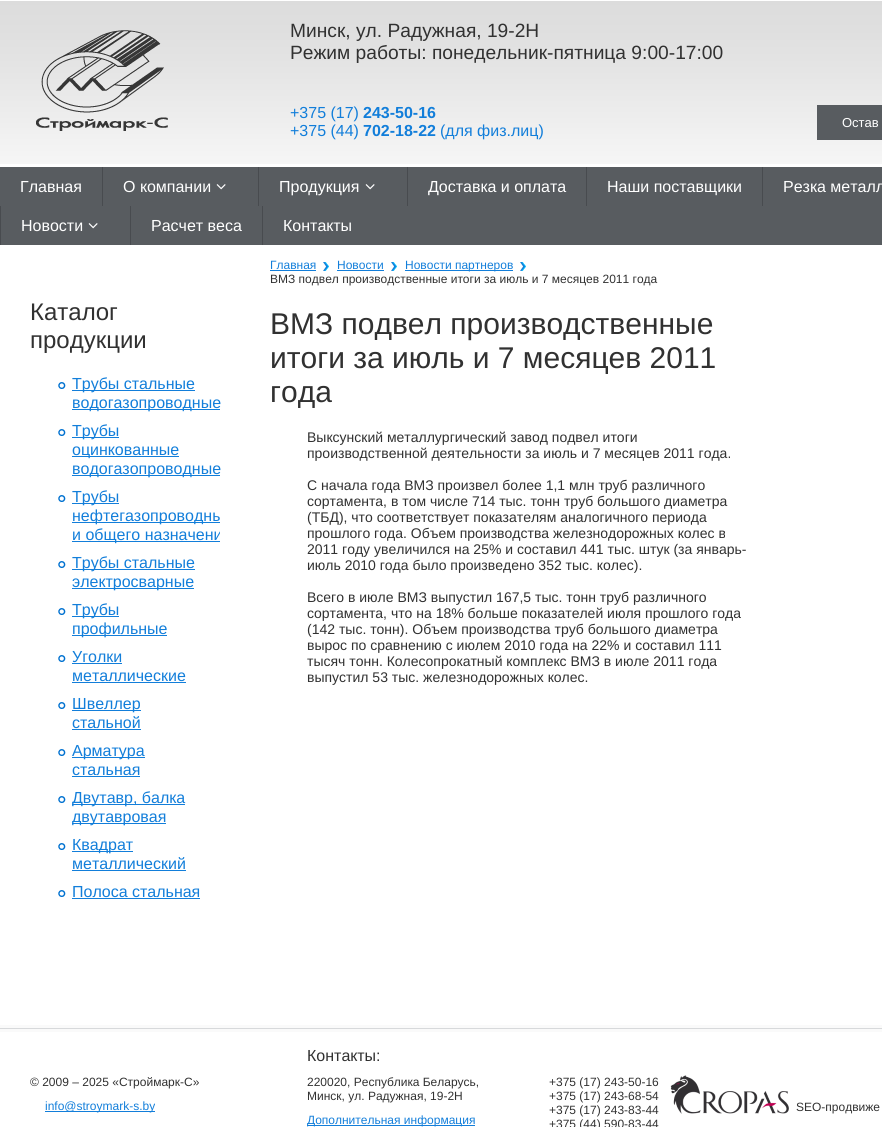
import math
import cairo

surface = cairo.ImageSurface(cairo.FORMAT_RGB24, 882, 1127)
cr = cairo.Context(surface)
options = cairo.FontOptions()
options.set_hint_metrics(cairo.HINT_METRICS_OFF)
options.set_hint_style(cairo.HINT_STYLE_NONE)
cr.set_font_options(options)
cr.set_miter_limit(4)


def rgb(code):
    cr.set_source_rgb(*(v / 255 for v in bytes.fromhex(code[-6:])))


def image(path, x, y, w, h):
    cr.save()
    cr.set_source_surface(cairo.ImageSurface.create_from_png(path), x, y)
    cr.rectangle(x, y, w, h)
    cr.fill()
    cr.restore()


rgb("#ffffff")
cr.paint()
image("img/1.png", 0, 1, 882, 163)
image("img/2.png", 36, 30, 132, 101)
for x, y, w, h, color in [
    (817, 105, 65, 35, "#585c60"),
    (0, 167, 882, 78, "#585c60"),
    (102, 167, 1, 39, "#484b4f"),
]:
    rgb(color)
    cr.rectangle(x, y, w, h)
    cr.fill()
image("img/3.png", 216, 184, 10, 6)
cr.rectangle(258, 167, 1, 39)
cr.fill()
image("img/3.png", 365, 184, 10, 6)
for x, y, w, h, color in [
    (407, 167, 1, 39, "#484b4f"),
    (586, 167, 1, 39, "#484b4f"),
    (762, 167, 1, 39, "#484b4f"),
    (0, 206, 1, 39, "#484b4f"),
]:
    rgb(color)
    cr.rectangle(x, y, w, h)
    cr.fill()
image("img/3.png", 88, 223, 10, 6)
cr.rectangle(130, 206, 1, 39)
cr.fill()
cr.rectangle(262, 206, 1, 39)
cr.fill()
image("img/4.png", 58, 382, 8, 7)
rgb("#127eda")
cr.rectangle(72, 390, 123, 1)
cr.fill()
cr.rectangle(72, 409, 148, 1)
cr.fill()
image("img/4.png", 58, 429, 8, 7)
for x, y, w, h, color in [
    (72, 437, 47, 1, "#127eda"),
    (72, 456, 107, 1, "#127eda"),
    (72, 475, 148, 1, "#127eda"),
]:
    rgb(color)
    cr.rectangle(x, y, w, h)
    cr.fill()
image("img/4.png", 58, 495, 8, 7)
for x, y, w, h, color in [
    (72, 503, 47, 1, "#127eda"),
    (72, 522, 148, 1, "#127eda"),
    (72, 541, 148, 1, "#127eda"),
]:
    rgb(color)
    cr.rectangle(x, y, w, h)
    cr.fill()
image("img/4.png", 58, 561, 8, 7)
cr.rectangle(72, 569, 123, 1)
cr.fill()
cr.rectangle(72, 588, 122, 1)
cr.fill()
image("img/4.png", 58, 608, 8, 7)
cr.rectangle(72, 616, 47, 1)
cr.fill()
cr.rectangle(72, 635, 95, 1)
cr.fill()
image("img/4.png", 58, 655, 8, 7)
cr.rectangle(72, 663, 50, 1)
cr.fill()
cr.rectangle(72, 682, 114, 1)
cr.fill()
image("img/4.png", 58, 702, 8, 7)
cr.rectangle(72, 710, 69, 1)
cr.fill()
cr.rectangle(72, 729, 69, 1)
cr.fill()
image("img/4.png", 58, 749, 8, 7)
cr.rectangle(72, 757, 73, 1)
cr.fill()
cr.rectangle(72, 776, 68, 1)
cr.fill()
image("img/4.png", 58, 796, 8, 7)
cr.rectangle(72, 804, 113, 1)
cr.fill()
cr.rectangle(72, 823, 94, 1)
cr.fill()
image("img/4.png", 58, 843, 8, 7)
cr.rectangle(72, 851, 61, 1)
cr.fill()
cr.rectangle(72, 870, 114, 1)
cr.fill()
image("img/4.png", 58, 890, 8, 7)
cr.rectangle(72, 898, 128, 1)
cr.fill()
image("img/5.png", 323, 262, 6, 9)
cr.rectangle(270, 270, 46, 1)
cr.fill()
image("img/5.png", 391, 262, 6, 9)
cr.rectangle(337, 270, 47, 1)
cr.fill()
image("img/5.png", 520, 262, 6, 9)
cr.rectangle(405, 270, 108, 1)
cr.fill()
image("img/6.png", 0, 1025, 882, 7)
cr.rectangle(45, 1111, 110, 1)
cr.fill()
cr.rectangle(307, 1125, 168, 1)
cr.fill()
image("img/7.png", 670, 1075, 119, 39)
cr.select_font_face("Liberation Sans")
cr.set_font_size(19.2)
rgb("#313131")
cr.move_to(290, 37)
cr.show_text("Минск, ул. Радужная, 19-2Н")
cr.move_to(290, 59)
cr.show_text("Режим работы: понедельник-пятница 9:00-17:00")
cr.set_font_size(16)
rgb("#127eda")
cr.move_to(290, 118)
cr.show_text("+375 (17)")
cr.select_font_face("Liberation Sans", cairo.FONT_SLANT_NORMAL, cairo.FONT_WEIGHT_BOLD)
cr.move_to(363, 118)
cr.show_text("243-50-16")
cr.select_font_face("Liberation Sans")
cr.move_to(290, 136)
cr.show_text("+375 (44)")
cr.select_font_face("Liberation Sans", cairo.FONT_SLANT_NORMAL, cairo.FONT_WEIGHT_BOLD)
cr.move_to(363, 136)
cr.show_text("702-18-22")
cr.select_font_face("Liberation Sans")
cr.move_to(440, 136)
cr.show_text("(для физ.лиц)")
cr.set_font_size(13)
rgb("#ffffff")
cr.move_to(842, 127)
cr.show_text("Остав")
cr.set_font_size(16)
for x, y, s in [
    (20, 192, "Главная"),
    (123, 192, "О компании"),
    (279, 192, "Продукция"),
    (428, 192, "Доставка и оплата"),
    (607, 192, "Наши поставщики"),
    (783, 192, "Резка металл"),
    (21, 231, "Новости"),
    (151, 231, "Расчет веса"),
    (283, 231, "Контакты"),
]:
    cr.move_to(x, y)
    cr.show_text(s)
cr.set_font_size(24)
rgb("#313131")
cr.move_to(30, 320)
cr.show_text("Каталог")
cr.move_to(30, 348)
cr.show_text("продукции")
cr.set_font_size(16)
rgb("#127eda")
for x, y, s in [
    (72, 389, "Трубы стальные"),
    (72, 408, "водогазопроводные"),
    (72, 436, "Трубы"),
    (72, 455, "оцинкованные"),
    (72, 474, "водогазопроводные"),
    (72, 502, "Трубы"),
]:
    cr.move_to(x, y)
    cr.show_text(s)
cr.save()
cr.rectangle(30, 374, 190, 536)
cr.clip()
cr.move_to(72, 521)
cr.show_text("нефтегазопроводны")
cr.move_to(72, 540)
cr.show_text("и общего назначени")
cr.restore()
for x, y, s in [
    (72, 568, "Трубы стальные"),
    (72, 587, "электросварные"),
    (72, 615, "Трубы"),
    (72, 634, "профильные"),
    (72, 662, "Уголки"),
    (72, 681, "металлические"),
    (72, 709, "Швеллер"),
    (72, 728, "стальной"),
    (72, 756, "Арматура"),
    (72, 775, "стальная"),
    (72, 803, "Двутавр, балка"),
    (72, 822, "двутавровая"),
    (72, 850, "Квадрат"),
    (72, 869, "металлический"),
    (72, 897, "Полоса стальная"),
]:
    cr.move_to(x, y)
    cr.show_text(s)
cr.set_font_size(12)
for x, y, s in [
    (270, 269, "Главная"),
    (337, 269, "Новости"),
    (405, 269, "Новости партнеров"),
]:
    cr.move_to(x, y)
    cr.show_text(s)
rgb("#313131")
cr.move_to(270, 283)
cr.show_text("ВМЗ подвел производственные итоги за июль и 7 месяцев 2011 года")
cr.set_font_size(30)
for x, y, s in [
    (270, 334, "ВМЗ подвел производственные"),
    (270, 368, "итоги за июль и 7 месяцев 2011"),
    (270, 402, "года"),
]:
    cr.move_to(x, y)
    cr.show_text(s)
cr.set_font_size(14)
for x, y, s in [
    (307, 442, "Выксунский металлургический завод подвел итоги"),
    (307, 458, "производственной деятельности за июль и 7 месяцев 2011 года."),
    (307, 490, "С начала года ВМЗ произвел более 1,1 млн труб различного"),
    (307, 506, "сортамента, в том числе 714 тыс. тонн труб большого диаметра"),
    (307, 522, "(ТБД), что соответствует показателям аналогичного периода"),
    (307, 538, "прошлого года. Объем производства железнодорожных колес в"),
    (307, 554, "2011 году увеличился на 25% и составил 441 тыс. штук (за январь-"),
    (307, 570, "июль 2010 года было произведено 352 тыс. колес)."),
    (307, 602, "Всего в июле ВМЗ выпустил 167,5 тыс. тонн труб различного"),
    (307, 618, "сортамента, что на 18% больше показателей июля прошлого года"),
    (307, 634, "(142 тыс. тонн). Объем производства труб большого диаметра"),
    (307, 650, "вырос по сравнению с июлем 2010 года на 22% и составил 111"),
    (307, 666, "тысяч тонн. Колесопрокатный комплекс ВМЗ в июле 2011 года"),
    (307, 682, "выпустил 53 тыс. железнодорожных колес."),
]:
    cr.move_to(x, y)
    cr.show_text(s)
cr.set_font_size(12)
cr.move_to(30, 1086)
cr.show_text("© 2009 – 2025 «Строймарк-C»")
rgb("#127eda")
cr.move_to(45, 1110)
cr.show_text("info@stroymark-s.by")
cr.set_font_size(16)
rgb("#313131")
cr.move_to(307, 1061)
cr.show_text("Контакты:")
cr.set_font_size(12)
cr.move_to(307, 1086)
cr.show_text("220020, Республика Беларусь,")
cr.move_to(307, 1100)
cr.show_text("Минск, ул. Радужная, 19-2Н")
rgb("#127eda")
cr.move_to(307, 1124)
cr.show_text("Дополнительная информация")
rgb("#313131")
for x, y, s in [
    (549, 1086, "+375 (17) 243-50-16"),
    (549, 1100, "+375 (17) 243-68-54"),
    (549, 1114, "+375 (17) 243-83-44"),
    (549, 1128, "+375 (44) 590-83-44"),
    (796, 1111, "SEO-продвиже"),
]:
    cr.move_to(x, y)
    cr.show_text(s)
surface.write_to_png("page.png")
